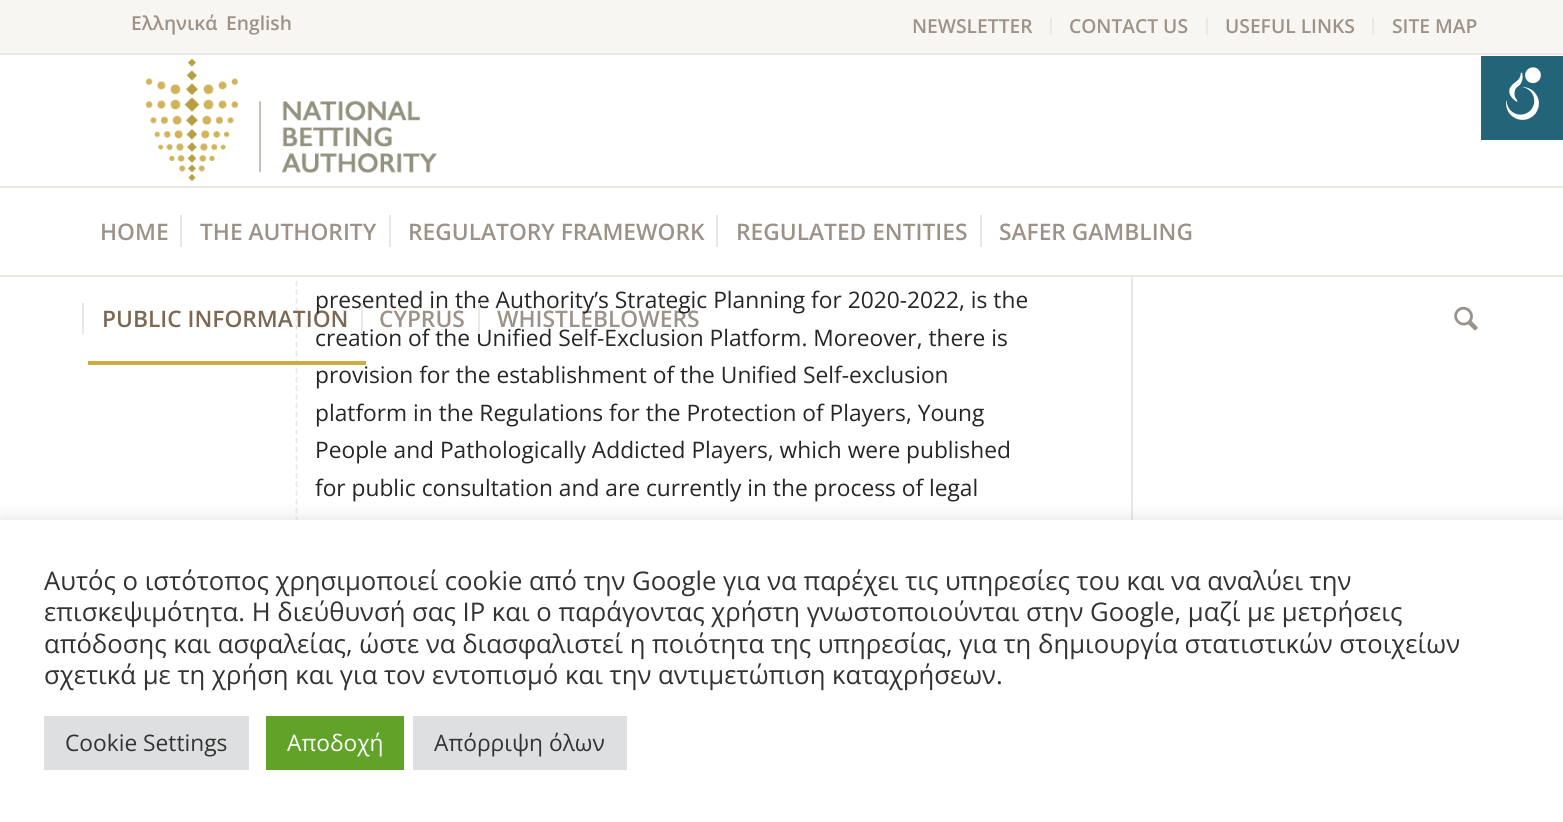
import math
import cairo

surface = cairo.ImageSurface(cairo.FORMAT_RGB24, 1563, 822)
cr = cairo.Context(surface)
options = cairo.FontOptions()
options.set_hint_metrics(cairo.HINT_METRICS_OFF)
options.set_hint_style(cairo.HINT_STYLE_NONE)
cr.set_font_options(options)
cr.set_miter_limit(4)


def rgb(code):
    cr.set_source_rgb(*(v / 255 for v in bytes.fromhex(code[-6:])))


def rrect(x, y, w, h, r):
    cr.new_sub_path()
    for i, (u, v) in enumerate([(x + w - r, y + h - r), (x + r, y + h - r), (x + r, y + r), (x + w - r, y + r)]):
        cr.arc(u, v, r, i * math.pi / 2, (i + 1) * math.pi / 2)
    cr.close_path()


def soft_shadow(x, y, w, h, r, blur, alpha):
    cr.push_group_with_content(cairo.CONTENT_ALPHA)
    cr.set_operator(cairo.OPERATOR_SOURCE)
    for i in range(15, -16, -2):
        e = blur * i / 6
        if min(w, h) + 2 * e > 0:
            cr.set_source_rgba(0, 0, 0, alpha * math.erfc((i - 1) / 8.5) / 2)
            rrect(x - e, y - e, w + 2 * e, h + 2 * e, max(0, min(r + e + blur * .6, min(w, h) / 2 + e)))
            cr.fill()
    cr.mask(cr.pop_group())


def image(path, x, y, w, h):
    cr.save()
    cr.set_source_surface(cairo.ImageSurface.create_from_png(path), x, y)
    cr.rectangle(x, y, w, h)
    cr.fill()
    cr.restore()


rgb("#ffffff")
cr.paint()
cr.new_path()
cr.move_to(296.5, -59.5)
cr.line_to(296.5, 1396.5)
rgb("#ebe8e2")
cr.set_line_width(1.8)
cr.set_dash([5.25, 3.48])
cr.stroke()
for x, y, w, h, color in [
    (0, 0, 1563, 53, "#f8f6f2"),
    (0, 53, 1563, 2, "#ebe8e2"),
    (1050, 18, 2, 17, "#ebe8e2"),
    (1206, 18, 2, 17, "#ebe8e2"),
    (1372, 18, 2, 17, "#ebe8e2"),
    (295, 55, 3, 220, "#ffffff"),
    (0, 275, 1563, 2, "#ebe8e2"),
]:
    rgb(color)
    cr.rectangle(x, y, w, h)
    cr.fill()
image("img/1.png", 145, 58, 292, 124)
for x, y, w, h, color in [
    (0, 186, 1563, 2, "#ebe8e2"),
    (180, 215, 2, 32, "#ebe8e2"),
    (389, 215, 2, 32, "#ebe8e2"),
    (716, 215, 2, 32, "#ebe8e2"),
    (980, 215, 2, 32, "#ebe8e2"),
    (82, 303, 2, 31, "#ebe8e2"),
    (88, 361, 278, 4, "#cbad3f"),
]:
    rgb(color)
    cr.rectangle(x, y, w, h)
    cr.fill()
image("img/2.png", 1454, 306, 24, 25)
rgb("#ebe8e2")
cr.rectangle(1131, 277, 2, 243)
cr.fill()
rgb("#236478")
cr.rectangle(1481, 56, 82, 84)
cr.fill()
image("img/3.png", 1506, 67, 35, 53)
rgb("#acabab")
soft_shadow(0, 518, 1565, 303, 0, 9, 0.3)
for x, y, w, h, color in [
    (0, 520, 1563, 302, "#ffffff"),
    (44, 716, 205, 54, "#dedfe0"),
    (266, 716, 138, 54, "#61a229"),
    (413, 716, 214, 54, "#dedfe0"),
]:
    rgb(color)
    cr.rectangle(x, y, w, h)
    cr.fill()
cr.select_font_face("Open Sans SemiBold")
cr.set_font_size(19.25)
rgb("#9c9288")
for x, y, s in [
    (131, 30, "Ελληνικά"),
    (226, 30, "English"),
    (912, 33, "NEWSLETTER"),
    (1069, 33, "CONTACT US"),
    (1225, 33, "USEFUL LINKS"),
    (1392, 33, "SITE MAP"),
]:
    cr.move_to(x, y)
    cr.show_text(s)
cr.set_font_size(22.75)
for x, y, s in [
    (100, 240, "HOME"),
    (200, 240, "THE AUTHORITY"),
    (408, 240, "REGULATORY FRAMEWORK"),
    (736, 240, "REGULATED ENTITIES"),
    (999, 240, "SAFER GAMBLING"),
]:
    cr.move_to(x, y)
    cr.show_text(s)
rgb("#7c6853")
cr.move_to(102, 327)
cr.show_text("PUBLIC INFORMATION")
rgb("#9c9288")
cr.move_to(379, 327)
cr.show_text("CYPRUS")
cr.move_to(497, 327)
cr.show_text("WHISTLEBLOWERS")
cr.select_font_face("Open Sans")
rgb("#262626")
cr.move_to(315, 308)
cr.show_text("presented in the Authority’s Strategic Planning for 2020-2022, is the")
cr.move_to(315, 346)
cr.show_text("creation of the Unified Self-Exclusion Platform. Moreover, there is")
rgb("#ebe8e2")
cr.rectangle(478, 303, 2, 31)
cr.fill()
cr.rectangle(361, 303, 2, 31)
cr.fill()
rgb("#262626")
for x, y, s in [
    (315, 383, "provision for the establishment of the Unified Self-exclusion"),
    (315, 421, "platform in the Regulations for the Protection of Players, Young"),
    (315, 458, "People and Pathologically Addicted Players, which were published"),
    (315, 496, "for public consultation and are currently in the process of legal"),
]:
    cr.move_to(x, y)
    cr.show_text(s)
cr.set_font_size(25.67)
rgb("#333333")
for x, y, s in [
    (44, 590, "Αυτός ο ιστότοπος χρησιμοποιεί cookie από την Google για να παρέχει τις υπηρεσίες του και να αναλύει την"),
    (44, 621, "επισκεψιμότητα. Η διεύθυνσή σας IP και ο παράγοντας χρήστη γνωστοποιούνται στην Google, μαζί με μετρήσεις"),
    (44, 653, "απόδοσης και ασφαλείας, ώστε να διασφαλιστεί η ποιότητα της υπηρεσίας, για τη δημιουργία στατιστικών στοιχείων"),
    (44, 684, "σχετικά με τη χρήση και για τον εντοπισμό και την αντιμετώπιση καταχρήσεων."),
]:
    cr.move_to(x, y)
    cr.show_text(s)
cr.set_font_size(22.75)
cr.move_to(65, 751)
cr.show_text("Cookie Settings")
rgb("#ffffff")
cr.move_to(287, 751)
cr.show_text("Αποδοχή")
rgb("#333333")
cr.move_to(434, 751)
cr.show_text("Απόρριψη όλων")
surface.write_to_png("page.png")
